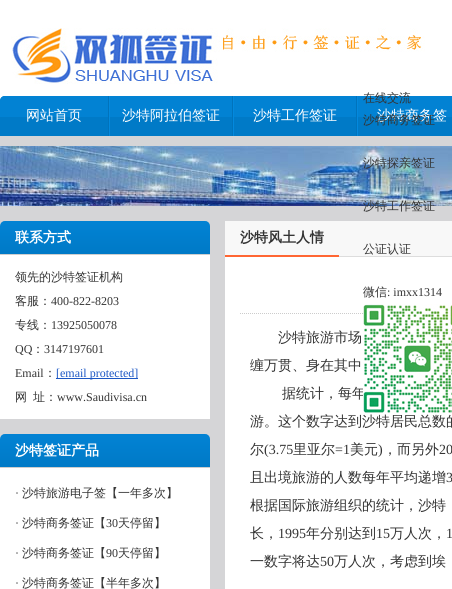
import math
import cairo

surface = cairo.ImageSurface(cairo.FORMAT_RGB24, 452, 589)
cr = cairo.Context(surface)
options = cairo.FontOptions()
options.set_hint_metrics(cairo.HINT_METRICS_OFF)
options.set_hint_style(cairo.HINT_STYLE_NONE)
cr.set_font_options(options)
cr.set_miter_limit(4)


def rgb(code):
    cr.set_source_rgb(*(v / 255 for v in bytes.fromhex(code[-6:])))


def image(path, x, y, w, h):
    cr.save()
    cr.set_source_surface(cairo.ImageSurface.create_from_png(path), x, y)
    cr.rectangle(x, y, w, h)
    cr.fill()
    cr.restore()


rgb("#d5d5d7")
cr.paint()
rgb("#ffffff")
cr.rectangle(0, 0, 452, 101)
cr.fill()
image("img/2.png", 11, 28, 414, 56)
rgb("#007ac7")
cr.new_path()
cr.move_to(5, 96)
cr.line_to(108, 96)
cr.line_to(108, 136)
cr.line_to(0, 136)
cr.line_to(0, 101)
cr.curve_to(0, 98, 2, 96, 5, 96)
cr.close_path()
cr.fill()
image("img/3.png", 0, 96, 108, 21)
for x, y, w, h, color in [
    (109, 96, 1, 40, "#0389de"),
    (108, 96, 1, 40, "#0073bc"),
    (110, 117, 122, 19, "#007ac7"),
    (110, 96, 122, 21, "#0282d3"),
    (233, 96, 1, 40, "#0389de"),
    (232, 96, 1, 40, "#0073bc"),
    (234, 117, 122, 19, "#007ac7"),
    (234, 96, 122, 21, "#0282d3"),
    (357, 96, 1, 40, "#0389de"),
    (356, 96, 1, 40, "#0073bc"),
    (358, 117, 94, 19, "#007ac7"),
    (358, 96, 94, 21, "#0282d3"),
]:
    rgb(color)
    cr.rectangle(x, y, w, h)
    cr.fill()
image("img/4.png", 0, 146, 452, 60)
image("img/5.png", 0, 221, 210, 33)
for x, y, w, h, color in [
    (0, 254, 210, 1, "#cecece"),
    (0, 255, 210, 164, "#ffffff"),
    (56, 378, 82, 1, "#1c57c4"),
]:
    rgb(color)
    cr.rectangle(x, y, w, h)
    cr.fill()
image("img/5.png", 0, 434, 210, 33)
for x, y, w, h, color in [
    (0, 467, 210, 1, "#cecece"),
    (0, 468, 210, 121, "#ffffff"),
    (225, 257, 227, 332, "#ffffff"),
    (225, 221, 227, 35, "#f8f8f8"),
    (339, 256, 113, 1, "#dddddd"),
    (225, 255, 114, 2, "#ff6633"),
]:
    rgb(color)
    cr.rectangle(x, y, w, h)
    cr.fill()
cr.new_path()
cr.move_to(240, 313.5)
cr.line_to(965, 313.5)
rgb("#cccccc")
cr.set_line_width(1)
cr.set_dash([1, 1])
cr.stroke()
cr.select_font_face("WenQuanYi Zen Hei Medium")
cr.set_font_size(12)
rgb("#333333")
for x, y, s in [
    (363, 102, "在线交流"),
    (363, 167, "沙特探亲签证"),
    (363, 210, "沙特工作签证"),
    (363, 253, "公证认证"),
    (363, 296, "微信"),
]:
    cr.move_to(x, y)
    cr.show_text(s)
cr.select_font_face("Liberation Serif")
cr.move_to(387, 296)
cr.show_text(": imxx1314")
cr.select_font_face("WenQuanYi Zen Hei Medium")
cr.set_font_size(14)
rgb("#ffffff")
for x, y, s in [
    (26, 120, "网站首页"),
    (122, 120, "沙特阿拉伯签证"),
    (253, 120, "沙特工作签证"),
    (377, 120, "沙特商务签"),
]:
    cr.move_to(x, y)
    cr.show_text(s)
cr.set_font_size(12)
rgb("#333333")
cr.move_to(363, 124)
cr.show_text("沙特商务签证")
cr.select_font_face("WenQuanYi Zen Hei", cairo.FONT_SLANT_NORMAL, cairo.FONT_WEIGHT_BOLD)
cr.set_font_size(14)
rgb("#ffffff")
cr.move_to(15, 242)
cr.show_text("联系方式")
cr.select_font_face("WenQuanYi Zen Hei Medium")
cr.set_font_size(12)
rgb("#333333")
cr.move_to(15, 281)
cr.show_text("领先的沙特签证机构")
cr.move_to(15, 305)
cr.show_text("客服：")
cr.select_font_face("Liberation Serif")
cr.move_to(51, 305)
cr.show_text("400-822-8203")
cr.select_font_face("WenQuanYi Zen Hei Medium")
cr.move_to(15, 329)
cr.show_text("专线：")
cr.select_font_face("Liberation Serif")
cr.move_to(51, 329)
cr.show_text("13925050078")
cr.move_to(15, 353)
cr.show_text("QQ")
cr.select_font_face("WenQuanYi Zen Hei Medium")
cr.move_to(32, 353)
cr.show_text("：")
cr.select_font_face("Liberation Serif")
cr.move_to(44, 353)
cr.show_text("3147197601")
cr.move_to(15, 377)
cr.show_text("Email")
cr.select_font_face("WenQuanYi Zen Hei Medium")
cr.move_to(44, 377)
cr.show_text("：")
cr.select_font_face("Liberation Serif")
rgb("#1c57c4")
cr.move_to(56, 377)
cr.show_text("[email protected]")
cr.select_font_face("WenQuanYi Zen Hei Medium")
rgb("#333333")
cr.move_to(15, 401)
cr.show_text("网")
cr.move_to(33, 401)
cr.show_text("址：")
cr.select_font_face("Liberation Serif")
cr.move_to(57, 401)
cr.show_text("www.Saudivisa.cn")
cr.select_font_face("WenQuanYi Zen Hei", cairo.FONT_SLANT_NORMAL, cairo.FONT_WEIGHT_BOLD)
cr.set_font_size(14)
rgb("#ffffff")
cr.move_to(15, 455)
cr.show_text("沙特签证产品")
cr.select_font_face("Liberation Serif")
cr.set_font_size(12)
rgb("#333333")
cr.move_to(15, 497)
cr.show_text("·")
cr.select_font_face("WenQuanYi Zen Hei Medium")
cr.move_to(22, 497)
cr.show_text("沙特旅游电子签【一年多次】")
cr.select_font_face("Liberation Serif")
cr.move_to(15, 527)
cr.show_text("·")
cr.select_font_face("WenQuanYi Zen Hei Medium")
cr.move_to(22, 527)
cr.show_text("沙特商务签证【")
cr.select_font_face("Liberation Serif")
cr.move_to(106, 527)
cr.show_text("30")
cr.select_font_face("WenQuanYi Zen Hei Medium")
cr.move_to(118, 527)
cr.show_text("天停留】")
cr.select_font_face("Liberation Serif")
cr.move_to(15, 557)
cr.show_text("·")
cr.select_font_face("WenQuanYi Zen Hei Medium")
cr.move_to(22, 557)
cr.show_text("沙特商务签证【")
cr.select_font_face("Liberation Serif")
cr.move_to(106, 557)
cr.show_text("90")
cr.select_font_face("WenQuanYi Zen Hei Medium")
cr.move_to(118, 557)
cr.show_text("天停留】")
cr.select_font_face("Liberation Serif")
cr.move_to(15, 587)
cr.show_text("·")
cr.select_font_face("WenQuanYi Zen Hei Medium")
cr.move_to(22, 587)
cr.show_text("沙特商务签证【半年多次】")
cr.select_font_face("WenQuanYi Zen Hei", cairo.FONT_SLANT_NORMAL, cairo.FONT_WEIGHT_BOLD)
cr.set_font_size(14)
cr.move_to(240, 242)
cr.show_text("沙特风土人情")
cr.select_font_face("WenQuanYi Zen Hei Medium")
for x, y, s in [
    (278, 342, "沙特旅游市场"),
    (250, 370, "缠万贯、身在其中"),
    (282, 398, "据统计，每年"),
]:
    cr.move_to(x, y)
    cr.show_text(s)
image("img/1.png", 363, 304, 89, 109)
cr.move_to(250, 426)
cr.show_text("游。这个数字达到沙特居民总数的")
cr.move_to(250, 454)
cr.show_text("尔")
cr.select_font_face("Liberation Serif")
cr.move_to(264, 454)
cr.show_text("(3.75")
cr.select_font_face("WenQuanYi Zen Hei Medium")
cr.move_to(293, 454)
cr.show_text("里亚尔")
cr.select_font_face("Liberation Serif")
cr.move_to(335, 454)
cr.show_text("=1")
cr.select_font_face("WenQuanYi Zen Hei Medium")
cr.move_to(350, 454)
cr.show_text("美元")
cr.select_font_face("Liberation Serif")
cr.move_to(378, 454)
cr.show_text(")")
cr.select_font_face("WenQuanYi Zen Hei Medium")
cr.move_to(383, 454)
cr.show_text("，而另外")
cr.select_font_face("Liberation Serif")
cr.move_to(439, 454)
cr.show_text("20")
cr.select_font_face("WenQuanYi Zen Hei Medium")
cr.move_to(250, 482)
cr.show_text("且出境旅游的人数每年平均递增")
cr.select_font_face("Liberation Serif")
cr.move_to(446, 482)
cr.show_text("3")
cr.select_font_face("WenQuanYi Zen Hei Medium")
cr.move_to(250, 510)
cr.show_text("根据国际旅游组织的统计，沙特")
cr.move_to(250, 538)
cr.show_text("长，")
cr.select_font_face("Liberation Serif")
cr.move_to(278, 538)
cr.show_text("1995")
cr.select_font_face("WenQuanYi Zen Hei Medium")
cr.move_to(306, 538)
cr.show_text("年分别达到")
cr.select_font_face("Liberation Serif")
cr.move_to(376, 538)
cr.show_text("15")
cr.select_font_face("WenQuanYi Zen Hei Medium")
cr.move_to(390, 538)
cr.show_text("万人次，")
cr.select_font_face("Liberation Serif")
cr.move_to(446, 538)
cr.show_text("1")
cr.select_font_face("WenQuanYi Zen Hei Medium")
cr.move_to(250, 566)
cr.show_text("一数字将达")
cr.select_font_face("Liberation Serif")
cr.move_to(320, 566)
cr.show_text("50")
cr.select_font_face("WenQuanYi Zen Hei Medium")
cr.move_to(334, 566)
cr.show_text("万人次，考虑到埃")
surface.write_to_png("page.png")
